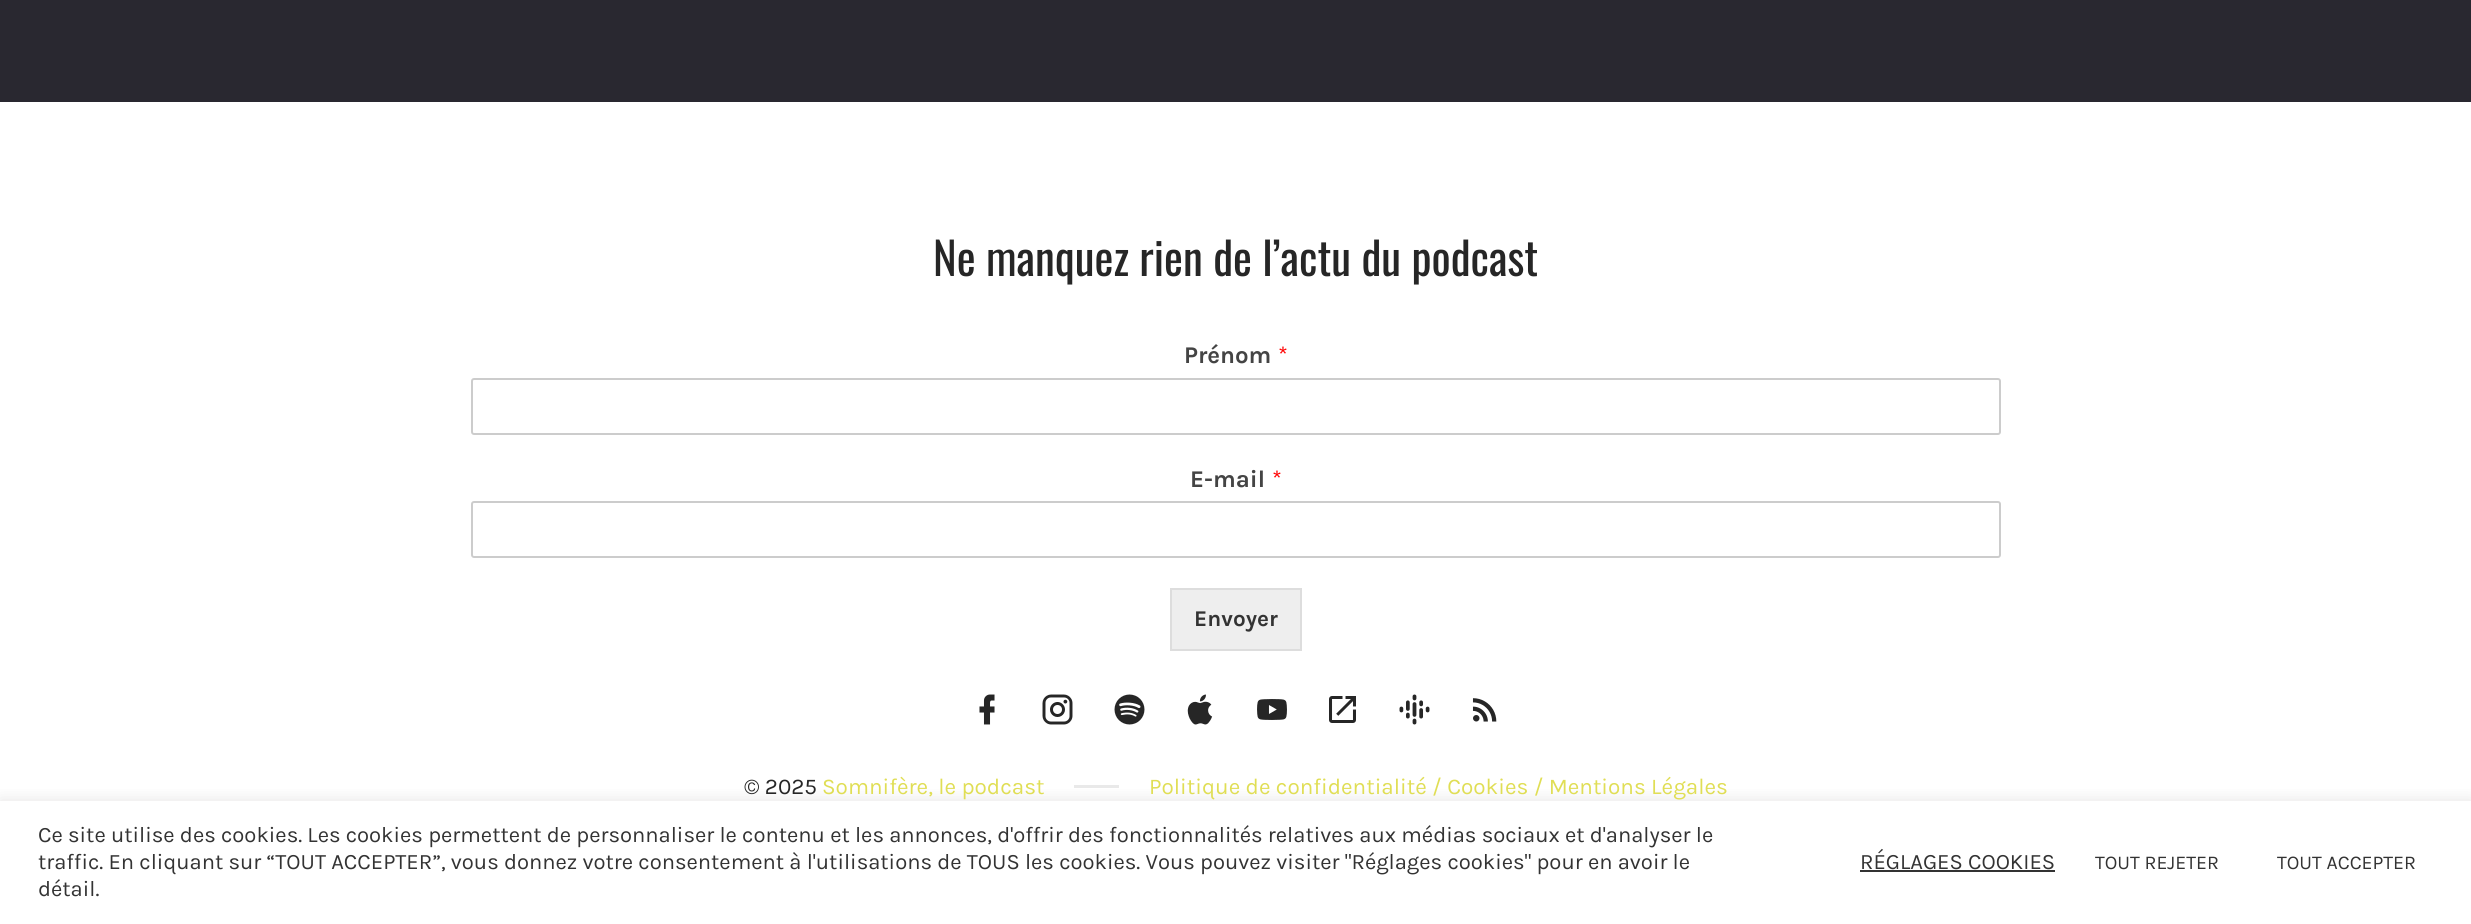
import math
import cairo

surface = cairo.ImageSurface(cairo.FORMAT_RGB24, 2471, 924)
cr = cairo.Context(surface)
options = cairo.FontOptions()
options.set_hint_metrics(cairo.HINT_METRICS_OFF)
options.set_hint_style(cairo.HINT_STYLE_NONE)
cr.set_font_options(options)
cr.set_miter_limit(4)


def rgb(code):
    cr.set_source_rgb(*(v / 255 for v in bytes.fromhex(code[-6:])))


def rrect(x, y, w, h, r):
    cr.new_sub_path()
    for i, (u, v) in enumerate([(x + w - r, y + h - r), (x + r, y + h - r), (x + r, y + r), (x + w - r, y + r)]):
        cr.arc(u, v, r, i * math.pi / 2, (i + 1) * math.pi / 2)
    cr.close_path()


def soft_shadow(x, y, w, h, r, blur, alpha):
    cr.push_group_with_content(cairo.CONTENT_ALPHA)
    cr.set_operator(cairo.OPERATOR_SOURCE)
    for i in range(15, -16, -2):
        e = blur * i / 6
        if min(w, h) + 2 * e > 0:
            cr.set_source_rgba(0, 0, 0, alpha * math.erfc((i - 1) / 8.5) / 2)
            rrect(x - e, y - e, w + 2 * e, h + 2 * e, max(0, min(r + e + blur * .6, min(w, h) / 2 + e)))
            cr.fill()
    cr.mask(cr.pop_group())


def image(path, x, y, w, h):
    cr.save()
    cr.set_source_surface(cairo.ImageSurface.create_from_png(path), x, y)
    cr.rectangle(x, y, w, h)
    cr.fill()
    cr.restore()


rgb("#ffffff")
cr.paint()
rgb("#292830")
cr.rectangle(0, 0, 2471, 102)
cr.fill()
rrect(472, 379, 1528, 55, 2)
rgb("#cccccc")
cr.stroke()
rrect(472, 502, 1528, 55, 2)
cr.stroke()
rgb("#eeeeee")
cr.rectangle(1171, 589, 130, 61)
cr.fill_preserve()
rgb("#dddddd")
cr.stroke()
image("img/1.png", 979, 694, 16, 31)
image("img/2.png", 1042, 694, 31, 31)
image("img/3.png", 1114, 694, 31, 31)
image("img/4.png", 1187, 694, 26, 31)
image("img/5.png", 1257, 699, 30, 21)
image("img/6.png", 1329, 696, 27, 27)
image("img/7.png", 1399, 694, 31, 31)
image("img/8.png", 1472, 698, 25, 24)
rgb("#e9e9e9")
cr.rectangle(1074, 785, 45, 3)
cr.fill()
cr.save()
cr.rectangle(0, 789, 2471, 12)
cr.clip()
rgb("#acabab")
soft_shadow(0, 800, 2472, 123, 0, 7.5, 0.3)
cr.restore()
rgb("#333333")
cr.rectangle(1860, 870, 195, 2)
cr.fill()
cr.select_font_face("Oswald")
cr.set_font_size(45)
rgb("#262626")
cr.move_to(933, 276)
cr.show_text("Ne manquez rien de l’actu du podcast")
cr.select_font_face("Karla", cairo.FONT_SLANT_NORMAL, cairo.FONT_WEIGHT_BOLD)
cr.set_font_size(24)
rgb("#444444")
cr.move_to(1184, 363)
cr.show_text("Prénom")
cr.select_font_face("Karla")
rgb("#ff0000")
cr.move_to(1278, 363)
cr.show_text("*")
cr.select_font_face("Karla", cairo.FONT_SLANT_NORMAL, cairo.FONT_WEIGHT_BOLD)
rgb("#444444")
cr.move_to(1190, 487)
cr.show_text("E-mail")
cr.select_font_face("Karla")
rgb("#ff0000")
cr.move_to(1272, 487)
cr.show_text("*")
cr.select_font_face("Karla", cairo.FONT_SLANT_NORMAL, cairo.FONT_WEIGHT_BOLD)
cr.set_font_size(22.5)
rgb("#333333")
cr.move_to(1194, 626)
cr.show_text("Envoyer")
cr.select_font_face("Karla")
rgb("#262626")
cr.move_to(744, 794)
cr.show_text("© 2025")
rgb("#e0de55")
cr.move_to(822, 794)
cr.show_text("Somnifère, le podcast")
cr.move_to(1149, 794)
cr.show_text("Politique de confidentialité / Cookies / Mentions Légales")
cr.set_font_size(22)
rgb("#333333")
for x, y, s in [
    (38, 842, "Ce site utilise des cookies. Les cookies permettent de personnaliser le contenu et les annonces, d'offrir des fonctionnalités relatives aux médias sociaux et d'analyser le"),
    (38, 869, "traffic. En cliquant sur “TOUT ACCEPTER”, vous donnez votre consentement à l'utilisations de TOUS les cookies. Vous pouvez visiter \"Réglages cookies\" pour en avoir le"),
    (38, 896, "détail."),
    (1860, 869, "RÉGLAGES COOKIES"),
]:
    cr.move_to(x, y)
    cr.show_text(s)
cr.set_font_size(19.5)
cr.move_to(2095, 869)
cr.show_text("TOUT REJETER")
cr.move_to(2277, 869)
cr.show_text("TOUT ACCEPTER")
surface.write_to_png("page.png")
